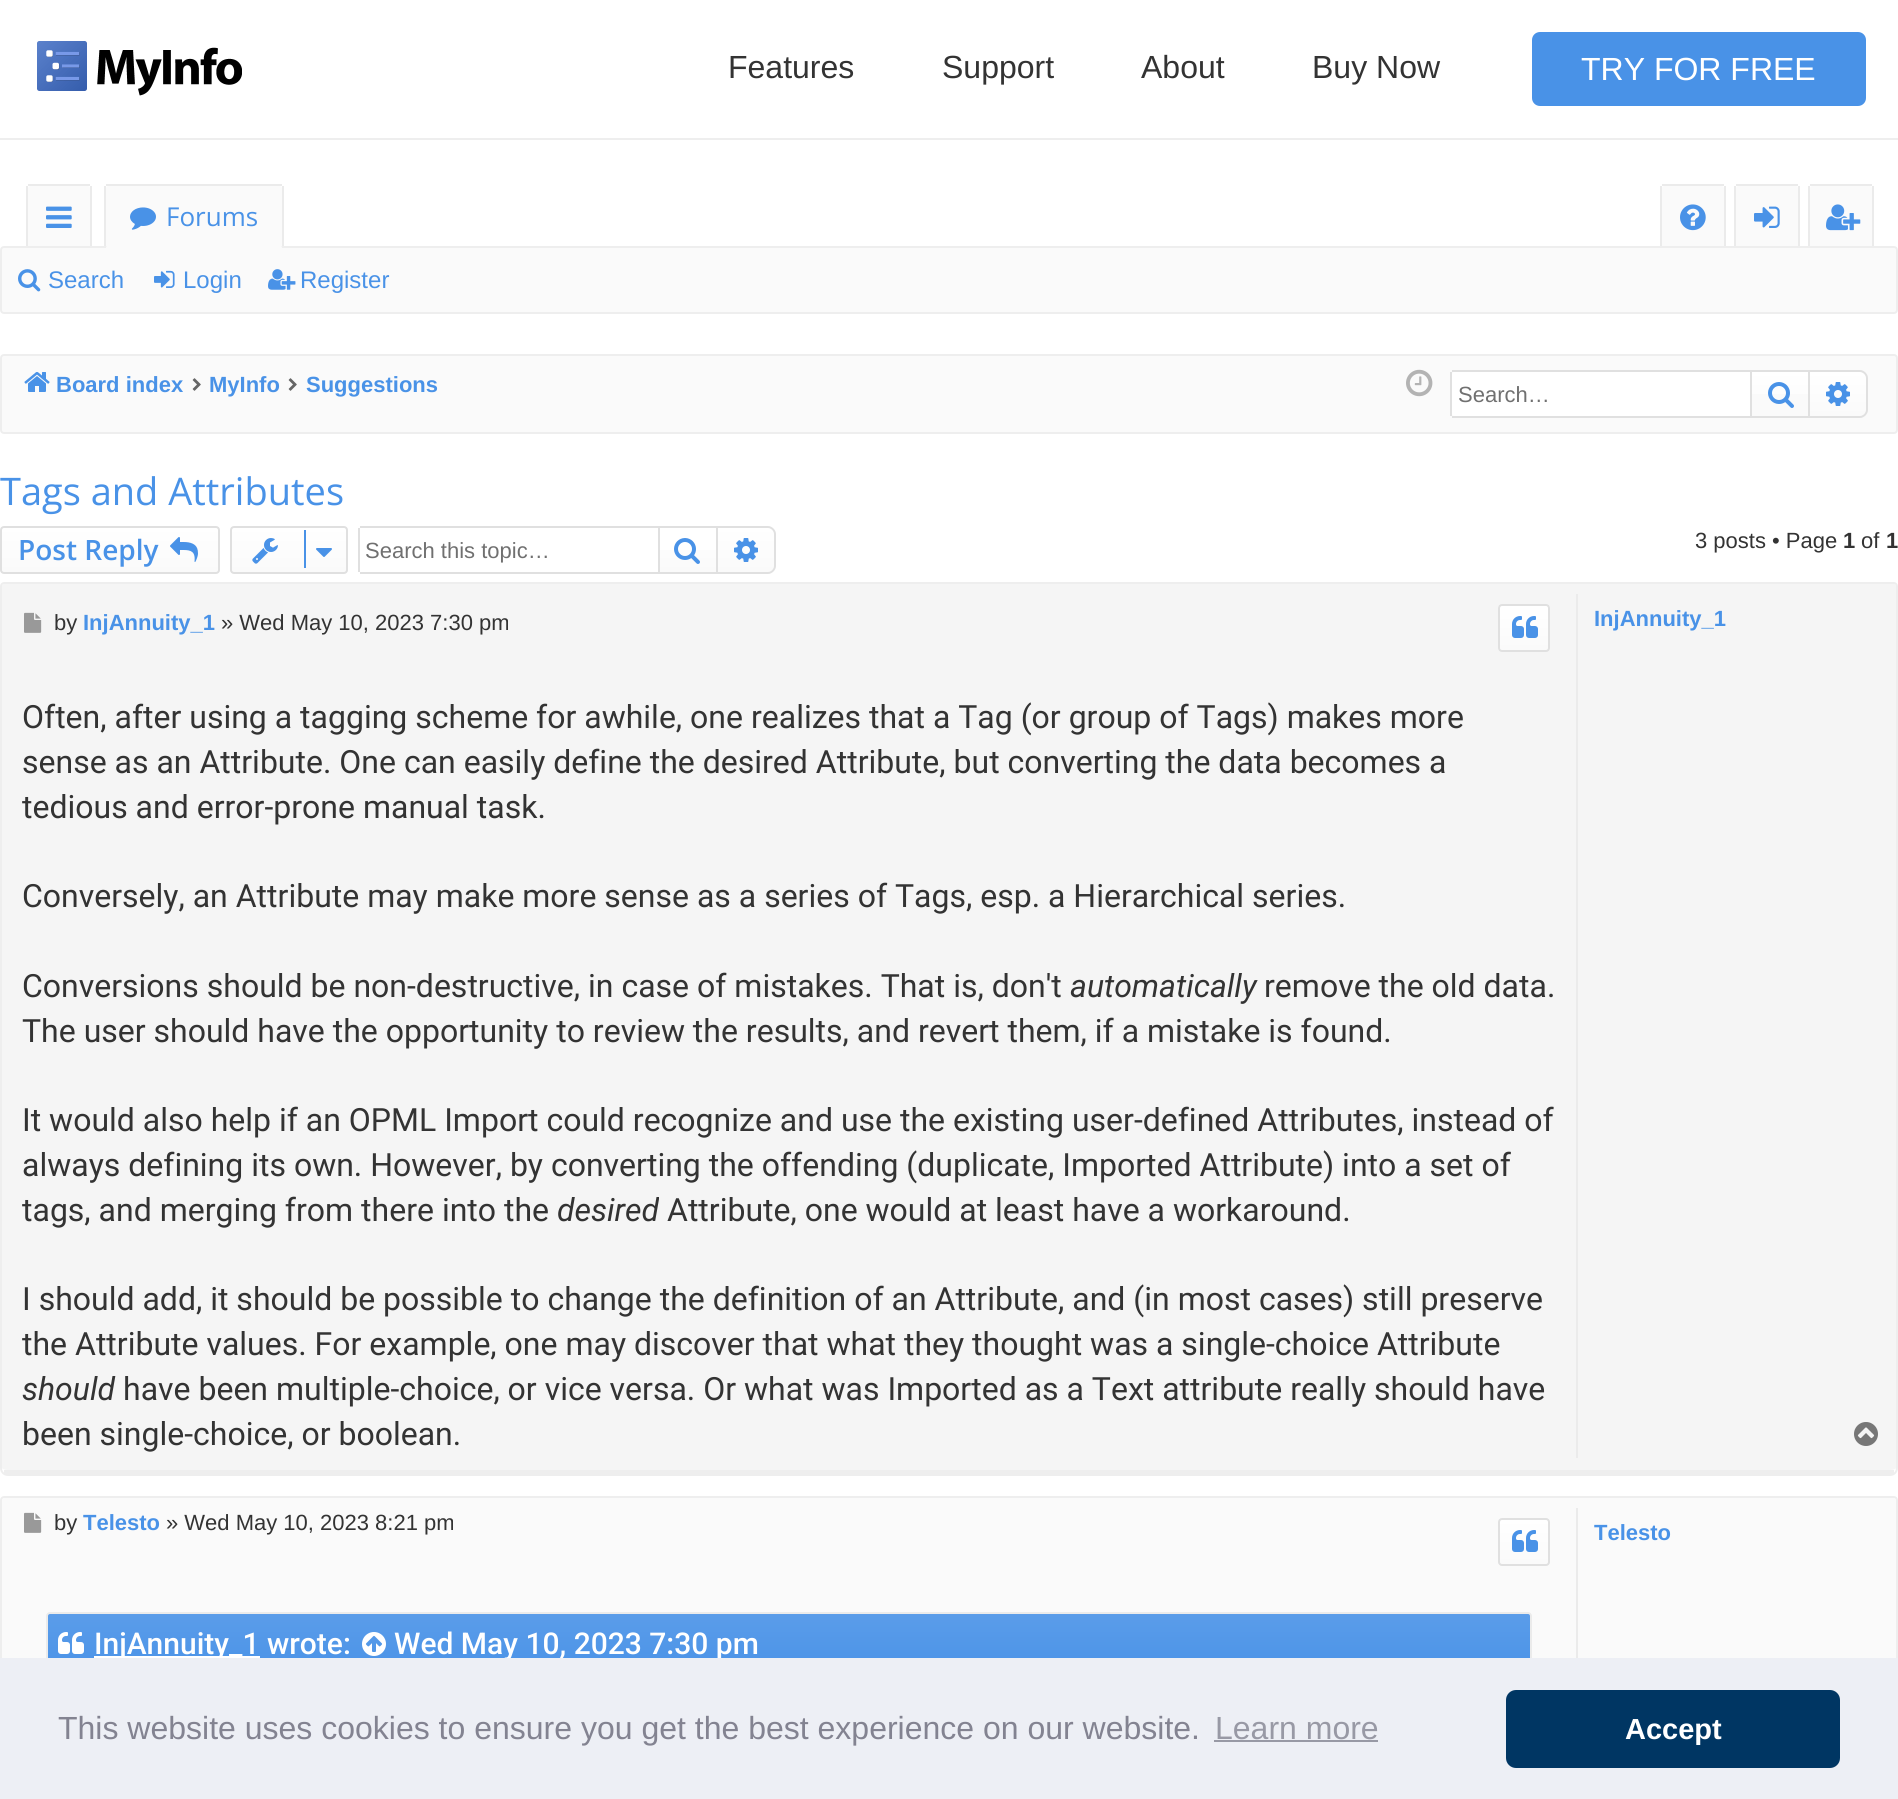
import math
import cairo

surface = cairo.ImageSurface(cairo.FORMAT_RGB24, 1898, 1799)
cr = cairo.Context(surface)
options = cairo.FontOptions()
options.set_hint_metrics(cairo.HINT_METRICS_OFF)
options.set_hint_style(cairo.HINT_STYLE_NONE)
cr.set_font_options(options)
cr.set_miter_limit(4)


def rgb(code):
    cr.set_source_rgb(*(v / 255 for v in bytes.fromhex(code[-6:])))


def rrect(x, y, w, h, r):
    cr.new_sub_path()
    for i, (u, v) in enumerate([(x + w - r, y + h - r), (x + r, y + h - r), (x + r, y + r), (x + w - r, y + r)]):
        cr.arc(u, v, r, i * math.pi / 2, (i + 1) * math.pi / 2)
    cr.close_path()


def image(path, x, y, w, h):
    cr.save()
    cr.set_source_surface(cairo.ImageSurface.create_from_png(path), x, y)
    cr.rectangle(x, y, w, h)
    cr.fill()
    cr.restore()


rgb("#ffffff")
cr.paint()
rgb("#eeeeee")
cr.rectangle(0, 138, 1898, 2)
cr.fill()
image("img/1.png", 37, 41, 205, 55)
rgb("#4992e7")
rrect(1533, 33, 332, 72, 7)
cr.fill_preserve()
cr.stroke()
rgb("#fafafa")
cr.new_path()
cr.move_to(30, 186)
cr.line_to(88, 186)
cr.curve_to(89, 186, 90, 187, 90, 188)
cr.line_to(90, 248)
cr.line_to(28, 248)
cr.line_to(28, 188)
cr.curve_to(28, 187, 29, 186, 30, 186)
cr.close_path()
cr.fill()
for x, y, w, h, color in [
    (28, 184, 62, 2, "#ebebeb"),
    (90, 186, 2, 62, "#ebebeb"),
    (26, 186, 2, 62, "#ebebeb"),
]:
    rgb(color)
    cr.rectangle(x, y, w, h)
    cr.fill()
image("img/2.png", 46, 206, 26, 22)
rgb("#fafafa")
cr.new_path()
cr.move_to(108, 186)
cr.line_to(280, 186)
cr.curve_to(281, 186, 282, 187, 282, 188)
cr.line_to(282, 248)
cr.line_to(106, 248)
cr.line_to(106, 188)
cr.curve_to(106, 187, 107, 186, 108, 186)
cr.close_path()
cr.fill()
for x, y, w, h, color in [
    (106, 184, 176, 2, "#ebebeb"),
    (282, 186, 2, 62, "#ebebeb"),
    (104, 186, 2, 62, "#ebebeb"),
]:
    rgb(color)
    cr.rectangle(x, y, w, h)
    cr.fill()
image("img/3.png", 130, 207, 26, 23)
rgb("#fafafa")
cr.new_path()
cr.move_to(1664, 186)
cr.line_to(1722, 186)
cr.curve_to(1723, 186, 1724, 187, 1724, 188)
cr.line_to(1724, 248)
cr.line_to(1662, 248)
cr.line_to(1662, 188)
cr.curve_to(1662, 187, 1663, 186, 1664, 186)
cr.close_path()
cr.fill()
rgb("#ebebeb")
cr.rectangle(1724, 186, 2, 62)
cr.fill()
cr.rectangle(1660, 186, 2, 62)
cr.fill()
rgb("#fafafa")
cr.new_path()
cr.move_to(1738, 186)
cr.line_to(1796, 186)
cr.curve_to(1797, 186, 1798, 187, 1798, 188)
cr.line_to(1798, 248)
cr.line_to(1736, 248)
cr.line_to(1736, 188)
cr.curve_to(1736, 187, 1737, 186, 1738, 186)
cr.close_path()
cr.fill()
rgb("#ebebeb")
cr.rectangle(1798, 186, 2, 62)
cr.fill()
cr.rectangle(1734, 186, 2, 62)
cr.fill()
rgb("#fafafa")
cr.new_path()
cr.move_to(1812, 186)
cr.line_to(1870, 186)
cr.curve_to(1871, 186, 1872, 187, 1872, 188)
cr.line_to(1872, 248)
cr.line_to(1810, 248)
cr.line_to(1810, 188)
cr.curve_to(1810, 187, 1811, 186, 1812, 186)
cr.close_path()
cr.fill()
rgb("#ebebeb")
cr.rectangle(1872, 186, 2, 62)
cr.fill()
cr.rectangle(1808, 186, 2, 62)
cr.fill()
rgb("#fafafa")
rrect(1, 247, 1896, 66, 3)
cr.fill_preserve()
rgb("#eeeeee")
cr.stroke()
rgb("#fafafa")
cr.new_path()
cr.move_to(110, 244)
cr.line_to(278, 244)
cr.curve_to(280, 244, 282, 246, 282, 248)
cr.line_to(282, 252)
cr.line_to(106, 252)
cr.line_to(106, 248)
cr.curve_to(106, 246, 108, 244, 110, 244)
cr.close_path()
cr.fill()
rgb("#ebebeb")
cr.rectangle(1662, 184, 62, 2)
cr.fill()
image("img/4.png", 1680, 204, 26, 27)
cr.rectangle(1736, 184, 62, 2)
cr.fill()
image("img/5.png", 1754, 206, 26, 22)
cr.rectangle(1810, 184, 62, 2)
cr.fill()
image("img/6.png", 1826, 204, 35, 27)
image("img/7.png", 18, 269, 23, 23)
image("img/8.png", 154, 270, 21, 18)
image("img/9.png", 268, 269, 28, 21)
rgb("#fafafa")
rrect(1, 355, 1896, 78, 3)
cr.fill_preserve()
rgb("#eeeeee")
cr.stroke()
image("img/10.png", 24, 372, 26, 20)
image("img/11.png", 192, 378, 9, 13)
image("img/11.png", 288, 378, 9, 13)
image("img/12.png", 1406, 369, 27, 28)
rgb("#ffffff")
cr.new_path()
cr.move_to(1454, 372)
cr.line_to(1750, 372)
cr.line_to(1750, 416)
cr.line_to(1454, 416)
cr.curve_to(1453, 416, 1452, 415, 1452, 414)
cr.line_to(1452, 374)
cr.curve_to(1452, 373, 1453, 372, 1454, 372)
cr.close_path()
cr.fill()
for x, y, w, h, color in [
    (1452, 370, 298, 2, "#e0e0e0"),
    (1452, 416, 298, 2, "#e0e0e0"),
    (1450, 372, 2, 44, "#e0e0e0"),
]:
    rgb(color)
    cr.rectangle(x, y, w, h)
    cr.fill()
gradient = cairo.LinearGradient(1780, 372, 1780, 416)
gradient.add_color_stop_rgba(0, 1, 1, 1, 1)
gradient.add_color_stop_rgba(1, 0.98, 0.98, 0.98, 1)
cr.set_source(gradient)
cr.rectangle(1752, 372, 56, 22)
cr.fill()
cr.rectangle(1751, 371, 58, 46)
rgb("#e0e0e0")
cr.stroke()
image("img/13.png", 1768, 382, 26, 26)
gradient = cairo.LinearGradient(1838, 372, 1838, 416)
gradient.add_color_stop_rgba(0, 1, 1, 1, 1)
gradient.add_color_stop_rgba(1, 0.98, 0.98, 0.98, 1)
cr.set_source(gradient)
cr.new_path()
cr.move_to(1810, 372)
cr.line_to(1860, 372)
cr.curve_to(1863.5, 372, 1866, 374.5, 1866, 378)
cr.line_to(1866, 410)
cr.curve_to(1866, 413.5, 1863.5, 416, 1860, 416)
cr.line_to(1810, 416)
cr.close_path()
cr.fill()
rgb("#e0e0e0")
cr.set_fill_rule(cairo.FILL_RULE_EVEN_ODD)
cr.new_path()
cr.move_to(1810, 370)
cr.line_to(1860, 370)
cr.curve_to(1864, 370, 1868, 374, 1868, 378)
cr.line_to(1868, 410)
cr.curve_to(1868, 414, 1864, 418, 1860, 418)
cr.line_to(1810, 418)
cr.close_path()
cr.move_to(1810, 372)
cr.line_to(1860, 372)
cr.curve_to(1863, 372, 1866, 375, 1866, 378)
cr.line_to(1866, 410)
cr.curve_to(1866, 413, 1863, 416, 1860, 416)
cr.line_to(1810, 416)
cr.close_path()
cr.fill()
image("img/14.png", 1826, 382, 24, 24)
cr.save()
cr.set_fill_rule(cairo.FILL_RULE_WINDING)
rrect(0, 526, 220, 48, 4)
cr.clip()
gradient = cairo.LinearGradient(110, 528, 110, 572)
gradient.add_color_stop_rgba(0, 1, 1, 1, 1)
gradient.add_color_stop_rgba(1, 0.98, 0.98, 0.98, 1)
cr.set_source(gradient)
cr.rectangle(0, 528, 220, 44)
cr.fill()
cr.restore()
rrect(1, 527, 218, 46, 3)
cr.stroke()
image("img/15.png", 170, 537, 28, 25)
cr.save()
cr.set_fill_rule(cairo.FILL_RULE_WINDING)
rrect(230, 526, 118, 48, 4)
cr.clip()
gradient = cairo.LinearGradient(289, 528, 289, 572)
gradient.add_color_stop_rgba(0, 1, 1, 1, 1)
gradient.add_color_stop_rgba(1, 0.98, 0.98, 0.98, 1)
cr.set_source(gradient)
cr.rectangle(230, 528, 118, 44)
cr.fill()
cr.restore()
rrect(231, 527, 116, 46, 3)
cr.stroke()
image("img/16.png", 252, 538, 26, 26)
rgb("#4992e7")
cr.rectangle(304, 530, 2, 38)
cr.fill()
image("img/17.png", 316, 548, 16, 9)
for x, y, w, h, color in [
    (360, 526, 298, 2, "#e0e0e0"),
    (360, 572, 298, 2, "#e0e0e0"),
    (358, 528, 2, 44, "#e0e0e0"),
]:
    rgb(color)
    cr.rectangle(x, y, w, h)
    cr.fill()
gradient = cairo.LinearGradient(688, 528, 688, 572)
gradient.add_color_stop_rgba(0, 1, 1, 1, 1)
gradient.add_color_stop_rgba(1, 0.98, 0.98, 0.98, 1)
cr.set_source(gradient)
cr.rectangle(660, 550, 56, 22)
cr.fill()
cr.rectangle(659, 527, 58, 46)
rgb("#e0e0e0")
cr.stroke()
image("img/13.png", 674, 538, 26, 26)
gradient = cairo.LinearGradient(746, 528, 746, 572)
gradient.add_color_stop_rgba(0, 1, 1, 1, 1)
gradient.add_color_stop_rgba(1, 0.98, 0.98, 0.98, 1)
cr.set_source(gradient)
cr.new_path()
cr.move_to(718, 528)
cr.line_to(768, 528)
cr.curve_to(771.5, 528, 774, 530.5, 774, 534)
cr.line_to(774, 566)
cr.curve_to(774, 569.5, 771.5, 572, 768, 572)
cr.line_to(718, 572)
cr.close_path()
cr.fill()
rgb("#e0e0e0")
cr.new_path()
cr.move_to(718, 526)
cr.line_to(768, 526)
cr.curve_to(772, 526, 776, 530, 776, 534)
cr.line_to(776, 566)
cr.curve_to(776, 570, 772, 574, 768, 574)
cr.line_to(718, 574)
cr.close_path()
cr.move_to(718, 528)
cr.line_to(768, 528)
cr.curve_to(771, 528, 774, 531, 774, 534)
cr.line_to(774, 566)
cr.curve_to(774, 569, 771, 572, 768, 572)
cr.line_to(718, 572)
cr.close_path()
cr.fill()
image("img/14.png", 734, 538, 24, 24)
rgb("#f5f5f5")
cr.set_fill_rule(cairo.FILL_RULE_WINDING)
cr.new_path()
cr.move_to(4, 584)
cr.line_to(1894, 584)
cr.curve_to(1895, 584, 1896, 585, 1896, 586)
cr.line_to(1896, 1468)
cr.curve_to(1896, 1469, 1893, 1470, 1890, 1470)
cr.line_to(8, 1470)
cr.curve_to(5, 1470, 2, 1469, 2, 1468)
cr.line_to(2, 586)
cr.curve_to(2, 585, 3, 584, 4, 584)
cr.close_path()
cr.fill()
cr.new_path()
cr.move_to(4, 583)
cr.line_to(1894, 583)
cr.curve_to(1895.5, 583, 1897, 584.5, 1897, 586)
cr.line_to(1897, 1468)
cr.curve_to(1897, 1472, 1894, 1475, 1890, 1475)
cr.line_to(8, 1475)
cr.curve_to(4, 1475, 1, 1472, 1, 1468)
cr.line_to(1, 586)
cr.curve_to(1, 584.5, 2.5, 583, 4, 583)
cr.close_path()
rgb("#eeeeee")
cr.stroke()
cr.rectangle(4, 1470, 1890, 4)
cr.fill()
image("img/18.png", 24, 612, 18, 21)
cr.save()
rrect(1498, 604, 52, 48, 4)
cr.clip()
gradient = cairo.LinearGradient(1524, 606, 1524, 650)
gradient.add_color_stop_rgba(0, 1, 1, 1, 1)
gradient.add_color_stop_rgba(1, 0.98, 0.98, 0.98, 1)
cr.set_source(gradient)
cr.rectangle(1498, 606, 52, 44)
cr.fill()
cr.restore()
rrect(1499, 605, 50, 46, 3)
rgb("#e0e0e0")
cr.stroke()
image("img/19.png", 1512, 616, 26, 22)
rgb("#ebebeb")
cr.rectangle(1576, 594, 2, 864)
cr.fill()
image("img/20.png", 1854, 1422, 24, 24)
rgb("#fafafa")
cr.new_path()
cr.move_to(4, 1498)
cr.line_to(1894, 1498)
cr.curve_to(1895, 1498, 1896, 1499, 1896, 1500)
cr.line_to(1896, 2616)
cr.curve_to(1896, 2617, 1893, 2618, 1890, 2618)
cr.line_to(8, 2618)
cr.curve_to(5, 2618, 2, 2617, 2, 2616)
cr.line_to(2, 1500)
cr.curve_to(2, 1499, 3, 1498, 4, 1498)
cr.close_path()
cr.fill()
cr.new_path()
cr.move_to(4, 1497)
cr.line_to(1894, 1497)
cr.curve_to(1895.5, 1497, 1897, 1498.5, 1897, 1500)
cr.line_to(1897, 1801)
cr.curve_to(1897, 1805, 1894, 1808, 1890, 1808)
cr.line_to(8, 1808)
cr.curve_to(4, 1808, 1, 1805, 1, 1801)
cr.line_to(1, 1500)
cr.curve_to(1, 1498.5, 2.5, 1497, 4, 1497)
cr.close_path()
rgb("#eeeeee")
cr.stroke()
image("img/21.png", 24, 1512, 18, 21)
cr.save()
rrect(1498, 1518, 52, 48, 4)
cr.clip()
gradient = cairo.LinearGradient(1524, 1520, 1524, 1564)
gradient.add_color_stop_rgba(0, 1, 1, 1, 1)
gradient.add_color_stop_rgba(1, 0.98, 0.98, 0.98, 1)
cr.set_source(gradient)
cr.rectangle(1498, 1520, 52, 44)
cr.fill()
cr.restore()
rrect(1499, 1519, 50, 46, 3)
rgb("#e0e0e0")
cr.stroke()
image("img/19.png", 1512, 1530, 26, 22)
rrect(47, 1613, 1484, 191, 3)
rgb("#ebebeb")
cr.stroke()
cr.save()
rrect(48, 1614, 1482, 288, 2)
cr.clip()
rgb("#4992e7")
cr.new_path()
cr.move_to(50, 1612)
cr.line_to(1528, 1612)
cr.curve_to(1530, 1612, 1532, 1614, 1532, 1616)
cr.line_to(1532, 1676)
cr.line_to(46, 1676)
cr.line_to(46, 1616)
cr.curve_to(46, 1614, 48, 1612, 50, 1612)
cr.close_path()
cr.fill()
gradient = cairo.LinearGradient(789, 1612, 789, 1676)
gradient.add_color_stop_rgba(0, 1, 1, 1, 0.1)
gradient.add_color_stop_rgba(1, 1, 1, 1, 0)
cr.set_source(gradient)
cr.new_path()
cr.move_to(50, 1612)
cr.line_to(1528, 1612)
cr.curve_to(1530, 1612, 1532, 1614, 1532, 1616)
cr.line_to(1532, 1676)
cr.line_to(46, 1676)
cr.line_to(46, 1616)
cr.curve_to(46, 1614, 48, 1612, 50, 1612)
cr.close_path()
cr.fill()
cr.restore()
image("img/22.png", 58, 1632, 26, 22)
rgb("#ffffff")
cr.rectangle(94, 1656, 166, 2)
cr.fill()
image("img/23.png", 362, 1632, 24, 24)
rgb("#ebebeb")
cr.rectangle(1576, 1508, 2, 150)
cr.fill()
cr.select_font_face("Liberation Sans")
cr.set_font_size(32)
rgb("#333333")
for x, y, s in [
    (728, 78, "Features"),
    (942, 78, "Support"),
    (1141, 78, "About"),
    (1312, 78, "Buy Now"),
]:
    cr.move_to(x, y)
    cr.show_text(s)
rgb("#ffffff")
cr.move_to(1581, 80)
cr.show_text("TRY FOR FREE")
cr.select_font_face("Open Sans")
cr.set_font_size(26)
rgb("#4992e7")
cr.move_to(166, 226)
cr.show_text("Forums")
cr.select_font_face("Liberation Sans")
cr.set_font_size(24)
for x, y, s in [
    (48, 288, "Search"),
    (183, 288, "Login"),
    (300, 288, "Register"),
]:
    cr.move_to(x, y)
    cr.show_text(s)
cr.select_font_face("Liberation Sans", cairo.FONT_SLANT_NORMAL, cairo.FONT_WEIGHT_BOLD)
cr.set_font_size(22)
for x, y, s in [
    (56, 392, "Board index"),
    (209, 392, "MyInfo"),
    (306, 392, "Suggestions"),
]:
    cr.move_to(x, y)
    cr.show_text(s)
cr.select_font_face("Liberation Sans")
rgb("#707070")
cr.move_to(1458, 402)
cr.show_text("Search…")
cr.select_font_face("Open Sans")
cr.set_font_size(38)
rgb("#4992e7")
cr.move_to(0, 505)
cr.show_text("Tags and Attributes")
cr.select_font_face("Open Sans SemiBold")
cr.set_font_size(28)
cr.move_to(18, 560)
cr.show_text("Post Reply")
cr.select_font_face("Liberation Sans")
cr.set_font_size(22)
rgb("#707070")
cr.move_to(365, 558)
cr.show_text("Search this topic…")
rgb("#333333")
cr.move_to(1695, 548)
cr.show_text("3 posts • Page")
cr.select_font_face("Liberation Sans", cairo.FONT_SLANT_NORMAL, cairo.FONT_WEIGHT_BOLD)
cr.move_to(1843, 548)
cr.show_text("1")
cr.select_font_face("Liberation Sans")
cr.move_to(1861, 548)
cr.show_text("of")
cr.select_font_face("Liberation Sans", cairo.FONT_SLANT_NORMAL, cairo.FONT_WEIGHT_BOLD)
cr.move_to(1886, 548)
cr.show_text("1")
cr.select_font_face("Liberation Sans")
cr.move_to(54, 630)
cr.show_text("by")
cr.select_font_face("Liberation Sans", cairo.FONT_SLANT_NORMAL, cairo.FONT_WEIGHT_BOLD)
rgb("#4992e7")
cr.move_to(83, 630)
cr.show_text("InjAnnuity_1")
cr.select_font_face("Liberation Sans")
rgb("#333333")
cr.move_to(221, 630)
cr.show_text("» Wed May 10, 2023 7:30 pm")
cr.select_font_face("Roboto")
cr.set_font_size(32)
for x, y, s in [
    (22, 728, "Often, after using a tagging scheme for awhile, one realizes that a Tag (or group of Tags) makes more"),
    (22, 773, "sense as an Attribute. One can easily define the desired Attribute, but converting the data becomes a"),
    (22, 818, "tedious and error-prone manual task."),
    (22, 907, "Conversely, an Attribute may make more sense as a series of Tags, esp. a Hierarchical series."),
    (22, 997, "Conversions should be non-destructive, in case of mistakes. That is, don't"),
]:
    cr.move_to(x, y)
    cr.show_text(s)
cr.select_font_face("Roboto", cairo.FONT_SLANT_ITALIC)
cr.move_to(1070, 997)
cr.show_text("automatically")
cr.select_font_face("Roboto")
for x, y, s in [
    (1264, 997, "remove the old data."),
    (22, 1042, "The user should have the opportunity to review the results, and revert them, if a mistake is found."),
    (22, 1131, "It would also help if an OPML Import could recognize and use the existing user-defined Attributes, instead of"),
    (22, 1176, "always defining its own. However, by converting the offending (duplicate, Imported Attribute) into a set of"),
    (22, 1221, "tags, and merging from there into the"),
]:
    cr.move_to(x, y)
    cr.show_text(s)
cr.select_font_face("Roboto", cairo.FONT_SLANT_ITALIC)
cr.move_to(557, 1221)
cr.show_text("desired")
cr.select_font_face("Roboto")
for x, y, s in [
    (667, 1221, "Attribute, one would at least have a workaround."),
    (22, 1310, "I should add, it should be possible to change the definition of an Attribute, and (in most cases) still preserve"),
    (22, 1355, "the Attribute values. For example, one may discover that what they thought was a single-choice Attribute"),
]:
    cr.move_to(x, y)
    cr.show_text(s)
cr.select_font_face("Roboto", cairo.FONT_SLANT_ITALIC)
cr.move_to(22, 1400)
cr.show_text("should")
cr.select_font_face("Roboto")
cr.move_to(123, 1400)
cr.show_text("have been multiple-choice, or vice versa. Or what was Imported as a Text attribute really should have")
cr.move_to(22, 1445)
cr.show_text("been single-choice, or boolean.")
cr.select_font_face("Liberation Sans", cairo.FONT_SLANT_NORMAL, cairo.FONT_WEIGHT_BOLD)
cr.set_font_size(22)
rgb("#4992e7")
cr.move_to(1594, 626)
cr.show_text("InjAnnuity_1")
cr.select_font_face("Liberation Sans")
rgb("#333333")
cr.move_to(54, 1530)
cr.show_text("by")
cr.select_font_face("Liberation Sans", cairo.FONT_SLANT_NORMAL, cairo.FONT_WEIGHT_BOLD)
rgb("#4992e7")
cr.move_to(83, 1530)
cr.show_text("Telesto")
cr.select_font_face("Liberation Sans")
rgb("#333333")
cr.move_to(166, 1530)
cr.show_text("» Wed May 10, 2023 8:21 pm")
cr.select_font_face("Roboto Medium")
cr.set_font_size(30)
rgb("#ffffff")
cr.move_to(94, 1654)
cr.show_text("InjAnnuity_1 wrote:")
cr.move_to(394, 1654)
cr.show_text("Wed May 10, 2023 7:30 pm")
cr.select_font_face("Liberation Sans", cairo.FONT_SLANT_NORMAL, cairo.FONT_WEIGHT_BOLD)
cr.set_font_size(22)
rgb("#4992e7")
cr.move_to(1594, 1540)
cr.show_text("Telesto")
rgb("#edeff5")
cr.rectangle(0, 1658, 1898, 141)
cr.fill()
cr.select_font_face("Liberation Sans")
cr.set_font_size(32)
rgb("#838391")
cr.move_to(58, 1739)
cr.show_text("This website uses cookies to ensure you get the best experience on our website.")
rgb("#9899a5")
cr.move_to(1215, 1739)
cr.show_text("Learn more")
cr.rectangle(1214, 1740, 164, 2)
cr.fill()
rgb("#003663")
rrect(1506, 1690, 334, 78, 10)
cr.fill()
cr.select_font_face("Liberation Sans", cairo.FONT_SLANT_NORMAL, cairo.FONT_WEIGHT_BOLD)
cr.set_font_size(29)
rgb("#ffffff")
cr.move_to(1625, 1739)
cr.show_text("Accept")
surface.write_to_png("page.png")
